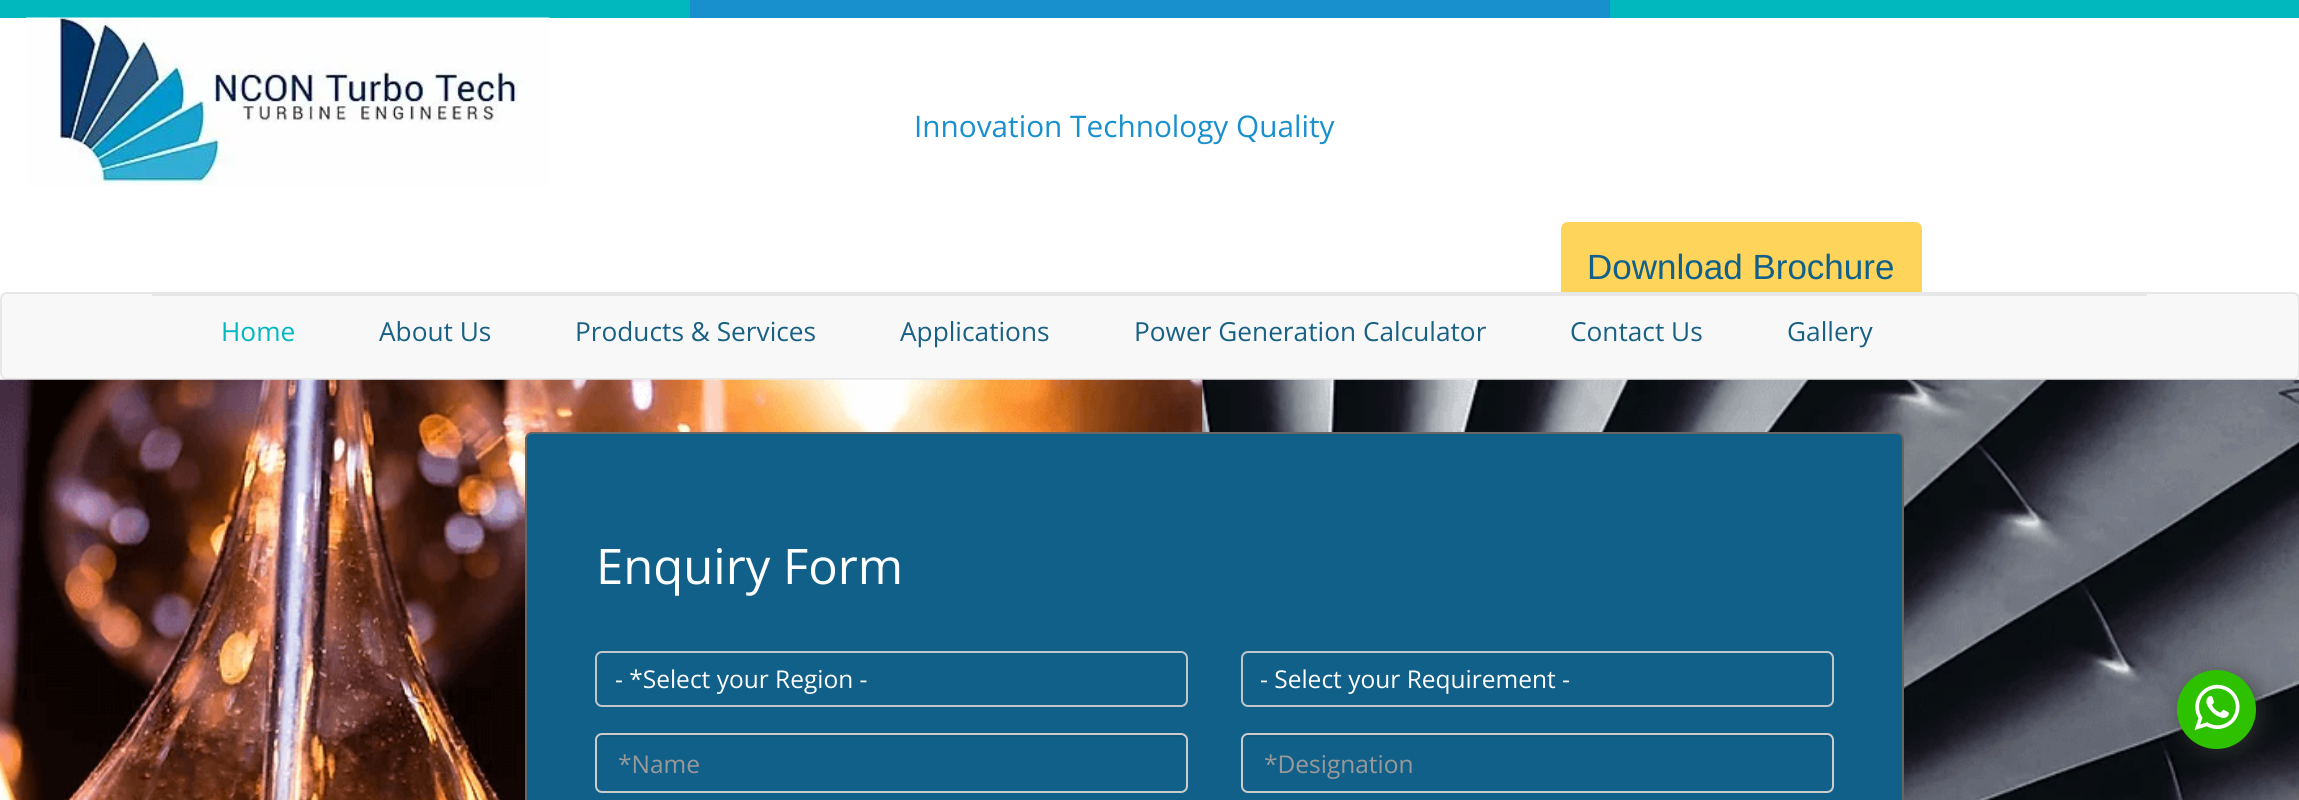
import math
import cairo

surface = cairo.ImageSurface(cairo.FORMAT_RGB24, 2299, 800)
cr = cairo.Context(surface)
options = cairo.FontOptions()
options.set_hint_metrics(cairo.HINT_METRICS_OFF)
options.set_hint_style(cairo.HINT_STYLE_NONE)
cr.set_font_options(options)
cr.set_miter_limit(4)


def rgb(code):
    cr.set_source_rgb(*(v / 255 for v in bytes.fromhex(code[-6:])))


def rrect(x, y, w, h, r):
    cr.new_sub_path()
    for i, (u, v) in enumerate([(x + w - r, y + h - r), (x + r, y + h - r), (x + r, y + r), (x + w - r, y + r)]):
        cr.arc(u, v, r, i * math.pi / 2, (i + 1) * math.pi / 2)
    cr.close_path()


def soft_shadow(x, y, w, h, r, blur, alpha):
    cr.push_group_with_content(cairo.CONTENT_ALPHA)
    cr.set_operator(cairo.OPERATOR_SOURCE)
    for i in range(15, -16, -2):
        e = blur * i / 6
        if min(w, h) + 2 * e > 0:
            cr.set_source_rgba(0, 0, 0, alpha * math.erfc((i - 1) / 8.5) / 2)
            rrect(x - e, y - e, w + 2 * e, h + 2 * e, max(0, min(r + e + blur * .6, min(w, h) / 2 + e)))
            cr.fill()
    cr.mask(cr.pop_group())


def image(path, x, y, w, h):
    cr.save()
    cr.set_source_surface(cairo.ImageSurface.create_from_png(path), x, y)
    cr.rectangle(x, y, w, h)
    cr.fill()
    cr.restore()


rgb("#ffffff")
cr.paint()
for x, y, w, h, color in [
    (0, 0, 690, 18, "#02b8bf"),
    (690, 0, 920, 18, "#1990ce"),
    (1610, 0, 689, 18, "#02b8bf"),
]:
    rgb(color)
    cr.rectangle(x, y, w, h)
    cr.fill()
image("img/1.png", 26, 17, 524, 169)
rgb("#ffd45a")
rrect(1561, 222, 361, 91, 7)
cr.fill()
rgb("#f8f8f8")
rrect(1, 293, 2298, 86, 6)
cr.fill_preserve()
rgb("#e7e7e7")
cr.stroke()
cr.rectangle(152, 294, 1995, 2)
cr.fill()
image("img/3.png", 1188, 379, 1111, 421)
image("img/2.png", 0, 379, 1203, 421)
rgb("#116089")
rrect(526, 433, 1377, 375, 6)
cr.fill_preserve()
rgb("#666666")
cr.stroke()
rrect(596, 652, 591, 54, 6)
rgb("#bec6ca")
cr.stroke()
rrect(1242, 652, 591, 54, 6)
cr.stroke()
rgb("#10597f")
cr.new_path()
cr.move_to(602, 737)
cr.line_to(1181, 737)
cr.curve_to(1184, 737, 1186, 739, 1186, 742)
cr.line_to(1186, 789)
cr.curve_to(1187, 788, 1187, 787, 1187, 786)
cr.line_to(1187, 740)
cr.curve_to(1187, 737, 1185, 735, 1182, 735)
cr.line_to(602, 735)
cr.curve_to(599, 735, 597, 737, 597, 740)
cr.line_to(597, 742)
cr.curve_to(597, 739, 599, 737, 602, 737)
cr.close_path()
cr.fill()
rrect(596, 734, 591, 58, 6)
rgb("#cccccc")
cr.stroke()
rgb("#10597f")
cr.new_path()
cr.move_to(1248, 737)
cr.line_to(1827, 737)
cr.curve_to(1830, 737, 1832, 739, 1832, 742)
cr.line_to(1832, 740)
cr.curve_to(1832, 737, 1830, 735, 1827, 735)
cr.line_to(1248, 735)
cr.curve_to(1246, 735, 1243, 737, 1243, 739)
cr.curve_to(1244, 738, 1246, 737, 1248, 737)
cr.close_path()
cr.fill()
rrect(1242, 734, 591, 58, 6)
rgb("#cccccc")
cr.stroke()
rgb("#333333")
soft_shadow(2182, 676, 79, 78, 39, 10.5, 0.72)
rgb("#2dc100")
cr.arc(2216.5, 709.5, 39.5, 0, 2 * math.pi)
cr.fill()
image("img/4.png", 2194, 684, 46, 47)
cr.select_font_face("Open Sans")
cr.set_font_size(29.75)
rgb("#1990ce")
cr.move_to(914, 137)
cr.show_text("Innovation Technology Quality")
cr.select_font_face("Liberation Sans")
cr.set_font_size(35)
rgb("#116089")
cr.move_to(1587, 279)
cr.show_text("Download Brochure")
cr.select_font_face("Open Sans")
cr.set_font_size(26.25)
rgb("#02b8bf")
cr.move_to(221, 341)
cr.show_text("Home")
rgb("#186184")
for x, y, s in [
    (379, 341, "About Us"),
    (575, 341, "Products & Services"),
    (900, 341, "Applications"),
    (1134, 341, "Power Generation Calculator"),
    (1570, 341, "Contact Us"),
    (1787, 341, "Gallery"),
]:
    cr.move_to(x, y)
    cr.show_text(s)
cr.set_font_size(49)
rgb("#ffffff")
cr.move_to(596, 584)
cr.show_text("Enquiry Form")
cr.set_font_size(24.5)
cr.move_to(615, 688)
cr.show_text("- *Select your Region -")
cr.move_to(1260, 688)
cr.show_text("- Select your Requirement -")
rgb("#999999")
cr.move_to(618, 773)
cr.show_text("*Name")
cr.move_to(1264, 773)
cr.show_text("*Designation")
surface.write_to_png("page.png")
